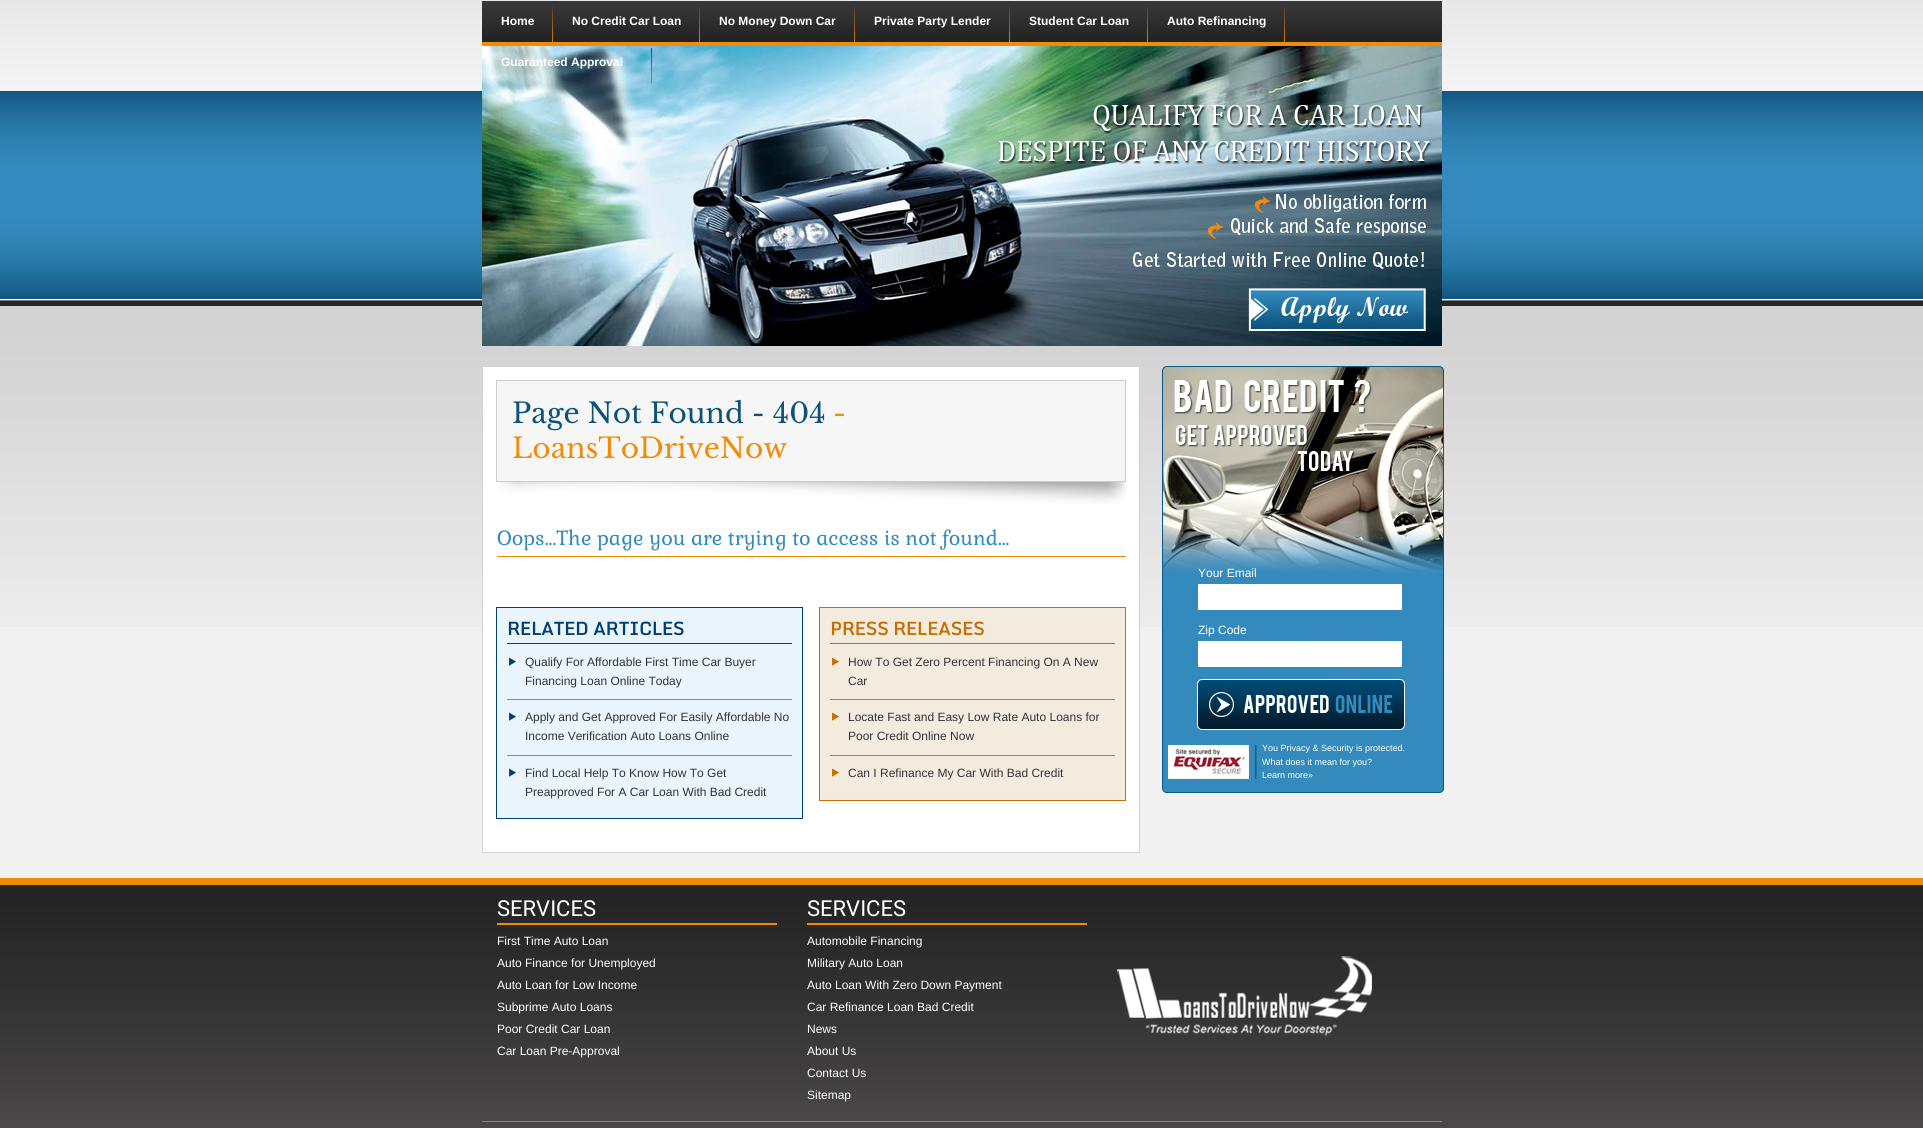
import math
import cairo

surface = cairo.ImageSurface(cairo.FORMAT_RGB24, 1923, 1128)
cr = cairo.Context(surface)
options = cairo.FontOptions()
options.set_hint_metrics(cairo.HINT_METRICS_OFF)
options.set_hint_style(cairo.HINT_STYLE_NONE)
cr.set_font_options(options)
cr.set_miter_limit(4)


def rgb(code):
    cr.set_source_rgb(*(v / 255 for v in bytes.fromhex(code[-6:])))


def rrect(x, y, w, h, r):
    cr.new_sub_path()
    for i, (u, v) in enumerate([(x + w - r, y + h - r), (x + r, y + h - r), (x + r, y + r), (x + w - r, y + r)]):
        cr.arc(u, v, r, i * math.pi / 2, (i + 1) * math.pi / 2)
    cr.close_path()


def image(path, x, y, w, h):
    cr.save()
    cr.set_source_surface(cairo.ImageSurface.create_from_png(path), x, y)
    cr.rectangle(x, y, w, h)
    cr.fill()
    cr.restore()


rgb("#f1f1f1")
cr.paint()
image("img/1.png", 0, 0, 1923, 627)
image("img/2.png", 482, 1, 960, 45)
image("img/3.png", 552, 7, 1, 35)
image("img/3.png", 699, 7, 1, 35)
image("img/3.png", 854, 7, 1, 35)
image("img/3.png", 1009, 7, 1, 35)
image("img/3.png", 1147, 7, 1, 35)
image("img/3.png", 1284, 7, 1, 35)
image("img/4.png", 482, 46, 960, 300)
image("img/3.png", 651, 48, 1, 35)
rgb("#ffffff")
cr.rectangle(482.5, 366.5, 657, 486)
cr.fill_preserve()
rgb("#d2d2d2")
cr.set_line_width(1)
cr.stroke()
rgb("#f6f6f6")
cr.rectangle(496.5, 380.5, 629, 101)
cr.fill_preserve()
rgb("#cccccc")
cr.stroke()
image("img/5.png", 499, 482, 628, 22)
rgb("#eb8a0b")
cr.rectangle(497, 556, 629, 1)
cr.fill()
rgb("#eaf4fc")
cr.rectangle(496.5, 607.5, 306, 211)
cr.fill_preserve()
rgb("#023f72")
cr.stroke()
cr.rectangle(507, 643, 285, 1)
cr.fill()
image("img/6.png", 509, 657, 7, 9)
rgb("#888888")
cr.rectangle(507, 699, 285, 1)
cr.fill()
image("img/6.png", 509, 712, 7, 9)
cr.rectangle(507, 755, 285, 1)
cr.fill()
image("img/6.png", 509, 768, 7, 9)
rgb("#f4ebdf")
cr.rectangle(819.5, 607.5, 306, 193)
cr.fill_preserve()
rgb("#c46f00")
cr.stroke()
cr.rectangle(830, 643, 285, 1)
cr.fill()
image("img/7.png", 832, 657, 7, 9)
rgb("#888888")
cr.rectangle(830, 699, 285, 1)
cr.fill()
image("img/7.png", 832, 712, 7, 9)
cr.rectangle(830, 755, 285, 1)
cr.fill()
image("img/7.png", 832, 768, 7, 9)
image("img/8.png", 1163, 367, 281, 426)
rrect(1162.5, 366.5, 281, 426, 4.5)
rgb("#05598b")
cr.stroke()
rgb("#ffffff")
cr.rectangle(1198, 584, 204, 26)
cr.fill()
cr.rectangle(1198, 641, 204, 26)
cr.fill()
image("img/9.png", 1197, 679, 208, 53)
image("img/10.png", 1168, 745, 89, 34)
image("img/11.png", 0, 878, 1923, 250)
rgb("#f08c0a")
cr.rectangle(497, 923, 280, 2)
cr.fill()
cr.rectangle(807, 923, 280, 2)
cr.fill()
image("img/12.png", 1117, 956, 255, 80)
rgb("#838383")
cr.rectangle(482, 1121, 960, 1)
cr.fill()
cr.select_font_face("Liberation Sans", cairo.FONT_SLANT_NORMAL, cairo.FONT_WEIGHT_BOLD)
cr.set_font_size(12)
rgb("#ffffff")
for x, y, s in [
    (501, 25, "Home"),
    (572, 25, "No Credit Car Loan"),
    (719, 25, "No Money Down Car"),
    (874, 25, "Private Party Lender"),
    (1029, 25, "Student Car Loan"),
    (1167, 25, "Auto Refinancing"),
    (501, 66, "Guaranteed Approval"),
]:
    cr.move_to(x, y)
    cr.show_text(s)
cr.select_font_face("Libre Baskerville")
cr.set_font_size(28)
rgb("#0c527b")
cr.move_to(512, 423)
cr.show_text("Page Not Found - 404")
rgb("#f08c0a")
cr.move_to(833, 423)
cr.show_text("-")
cr.move_to(512, 458)
cr.show_text("LoansToDriveNow")
cr.select_font_face("Gabriela")
cr.set_font_size(20)
rgb("#338abc")
cr.move_to(497, 545)
cr.show_text("Oops...The page you are trying to access is not found...")
cr.select_font_face("Monda", cairo.FONT_SLANT_NORMAL, cairo.FONT_WEIGHT_BOLD)
cr.set_font_size(18)
rgb("#023f72")
cr.move_to(507, 635)
cr.show_text("RELATED ARTICLES")
cr.select_font_face("Liberation Sans")
cr.set_font_size(12)
rgb("#333333")
for x, y, s in [
    (525, 666, "Qualify For Affordable First Time Car Buyer"),
    (525, 685, "Financing Loan Online Today"),
    (525, 721, "Apply and Get Approved For Easily Affordable No"),
    (525, 740, "Income Verification Auto Loans Online"),
    (525, 777, "Find Local Help To Know How To Get"),
    (525, 796, "Preapproved For A Car Loan With Bad Credit"),
]:
    cr.move_to(x, y)
    cr.show_text(s)
cr.select_font_face("Monda", cairo.FONT_SLANT_NORMAL, cairo.FONT_WEIGHT_BOLD)
cr.set_font_size(18)
rgb("#c46f00")
cr.move_to(830, 635)
cr.show_text("PRESS RELEASES")
cr.select_font_face("Liberation Sans")
cr.set_font_size(12)
rgb("#333333")
for x, y, s in [
    (848, 666, "How To Get Zero Percent Financing On A New"),
    (848, 685, "Car"),
    (848, 721, "Locate Fast and Easy Low Rate Auto Loans for"),
    (848, 740, "Poor Credit Online Now"),
    (848, 777, "Can I Refinance My Car With Bad Credit"),
]:
    cr.move_to(x, y)
    cr.show_text(s)
rgb("#ffffff")
cr.move_to(1198, 577)
cr.show_text("Your Email")
cr.move_to(1198, 634)
cr.show_text("Zip Code")
cr.set_font_size(9)
for x, y, s in [
    (1262, 751, "You Privacy & Security is protected."),
    (1262, 765, "What does it mean for you?"),
    (1262, 778, "Learn more»"),
]:
    cr.move_to(x, y)
    cr.show_text(s)
cr.select_font_face("Roboto")
cr.set_font_size(22)
cr.move_to(497, 916)
cr.show_text("SERVICES")
cr.select_font_face("Liberation Sans")
cr.set_font_size(12)
for x, y, s in [
    (497, 945, "First Time Auto Loan"),
    (497, 967, "Auto Finance for Unemployed"),
    (497, 989, "Auto Loan for Low Income"),
    (497, 1011, "Subprime Auto Loans"),
    (497, 1033, "Poor Credit Car Loan"),
    (497, 1055, "Car Loan Pre-Approval"),
]:
    cr.move_to(x, y)
    cr.show_text(s)
cr.select_font_face("Roboto")
cr.set_font_size(22)
cr.move_to(807, 916)
cr.show_text("SERVICES")
cr.select_font_face("Liberation Sans")
cr.set_font_size(12)
for x, y, s in [
    (807, 945, "Automobile Financing"),
    (807, 967, "Military Auto Loan"),
    (807, 989, "Auto Loan With Zero Down Payment"),
    (807, 1011, "Car Refinance Loan Bad Credit"),
    (807, 1033, "News"),
    (807, 1055, "About Us"),
    (807, 1077, "Contact Us"),
    (807, 1099, "Sitemap"),
]:
    cr.move_to(x, y)
    cr.show_text(s)
surface.write_to_png("page.png")
